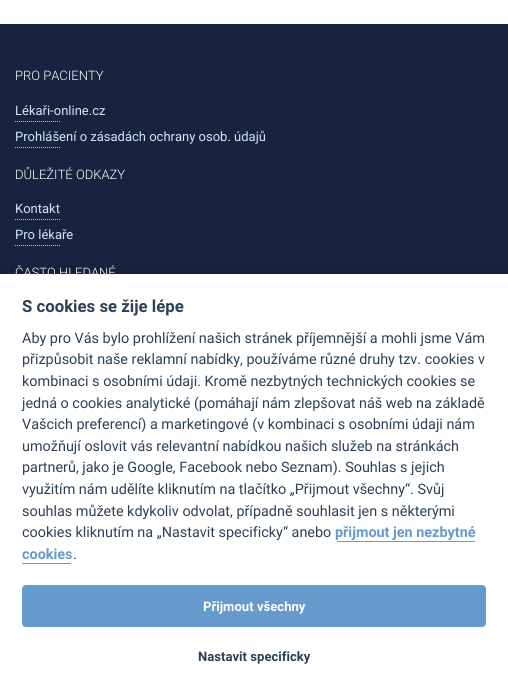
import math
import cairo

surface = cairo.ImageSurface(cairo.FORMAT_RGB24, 508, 700)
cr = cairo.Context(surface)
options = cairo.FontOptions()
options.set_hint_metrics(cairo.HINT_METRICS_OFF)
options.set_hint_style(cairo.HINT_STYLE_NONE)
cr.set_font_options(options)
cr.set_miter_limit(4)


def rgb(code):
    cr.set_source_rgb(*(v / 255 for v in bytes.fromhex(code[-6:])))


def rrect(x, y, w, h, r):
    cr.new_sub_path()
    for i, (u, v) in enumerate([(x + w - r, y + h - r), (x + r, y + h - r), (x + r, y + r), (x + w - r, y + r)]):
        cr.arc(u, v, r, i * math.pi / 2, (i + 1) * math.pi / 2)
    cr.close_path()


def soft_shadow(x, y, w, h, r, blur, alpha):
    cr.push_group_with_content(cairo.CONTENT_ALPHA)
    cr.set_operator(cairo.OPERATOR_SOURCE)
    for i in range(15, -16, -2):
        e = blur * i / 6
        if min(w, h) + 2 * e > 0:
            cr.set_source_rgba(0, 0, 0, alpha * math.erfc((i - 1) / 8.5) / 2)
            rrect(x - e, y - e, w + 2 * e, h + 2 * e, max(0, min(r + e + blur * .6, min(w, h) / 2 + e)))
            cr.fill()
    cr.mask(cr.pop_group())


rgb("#ffffff")
cr.paint()
rgb("#18233f")
cr.rectangle(0, 24, 508, 250)
cr.fill()
cr.new_path()
cr.move_to(15, 121.5)
cr.line_to(60, 121.5)
cr.move_to(15, 147.5)
cr.line_to(60, 147.5)
rgb("#c5c5c5")
cr.set_line_width(1)
cr.set_dash([1, 1])
cr.stroke()
cr.new_path()
cr.move_to(15, 219.5)
cr.line_to(60, 219.5)
cr.move_to(15, 245.5)
cr.line_to(60, 245.5)
cr.stroke()
rgb("#020203")
soft_shadow(0, 284, 508, 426, 0, 15, 0.28)
for x, y, w, h, color in [
    (0, 274, 508, 426, "#ffffff"),
    (337, 541, 138, 1, "#6699cc"),
    (22, 563, 49, 1, "#6699cc"),
]:
    rgb(color)
    cr.rectangle(x, y, w, h)
    cr.fill()
rrect(22, 585, 464, 42, 4)
cr.fill()
cr.select_font_face("Roboto Light")
cr.set_font_size(13)
rgb("#ffffff")
cr.move_to(15, 80)
cr.show_text("PRO PACIENTY")
cr.select_font_face("Roboto")
rgb("#d2e5ff")
cr.move_to(15, 115)
cr.show_text("Lékaři-online.cz")
cr.move_to(15, 141)
cr.show_text("Prohlášení o zásadách ochrany osob. údajů")
cr.select_font_face("Roboto Light")
rgb("#ffffff")
cr.move_to(15, 179)
cr.show_text("DŮLEŽITÉ ODKAZY")
cr.select_font_face("Roboto")
rgb("#d2e5ff")
cr.move_to(15, 213)
cr.show_text("Kontakt")
cr.move_to(15, 239)
cr.show_text("Pro lékaře")
cr.select_font_face("Roboto Light")
rgb("#ffffff")
cr.move_to(15, 277)
cr.show_text("ČASTO HLEDANÉ")
cr.select_font_face("Roboto", cairo.FONT_SLANT_NORMAL, cairo.FONT_WEIGHT_BOLD)
cr.set_font_size(16.75)
rgb("#2d4156")
cr.move_to(22, 312)
cr.show_text("S cookies se žije lépe")
cr.select_font_face("Roboto")
cr.set_font_size(14.4)
for x, y, s in [
    (22, 343, "Aby pro Vás bylo prohlížení našich stránek příjemnější a mohli jsme Vám"),
    (22, 364, "přizpůsobit naše reklamní nabídky, používáme různé druhy tzv. cookies v"),
    (22, 386, "kombinaci s osobními údaji. Kromě nezbytných technických cookies se"),
    (22, 408, "jedná o cookies analytické (pomáhají nám zlepšovat náš web na základě"),
    (22, 429, "Vašcich preferencí) a marketingové (v kombinaci s osobními údaji nám"),
    (22, 451, "umožňují oslovit vás relevantní nabídkou našich služeb na stránkách"),
    (22, 472, "partnerů, jako je Google, Facebook nebo Seznam). Souhlas s jejich"),
    (22, 494, "využitím nám udělíte kliknutím na tlačítko „Přijmout všechny“. Svůj"),
    (22, 516, "souhlas můžete kdykoliv odvolat, případně souhlasit jen s některými"),
    (22, 537, "cookies kliknutím na „Nastavit specificky“ anebo"),
]:
    cr.move_to(x, y)
    cr.show_text(s)
cr.select_font_face("Roboto", cairo.FONT_SLANT_NORMAL, cairo.FONT_WEIGHT_BOLD)
rgb("#6699cc")
cr.move_to(335, 537)
cr.show_text("přijmout jen nezbytné")
cr.move_to(22, 559)
cr.show_text("cookies")
cr.select_font_face("Roboto")
rgb("#2d4156")
cr.move_to(73, 559)
cr.show_text(".")
cr.select_font_face("Roboto", cairo.FONT_SLANT_NORMAL, cairo.FONT_WEIGHT_BOLD)
cr.set_font_size(13.1)
rgb("#ffffff")
cr.move_to(203, 611)
cr.show_text("Přijmout všechny")
rgb("#2d4156")
cr.move_to(198, 661)
cr.show_text("Nastavit specificky")
surface.write_to_png("page.png")
